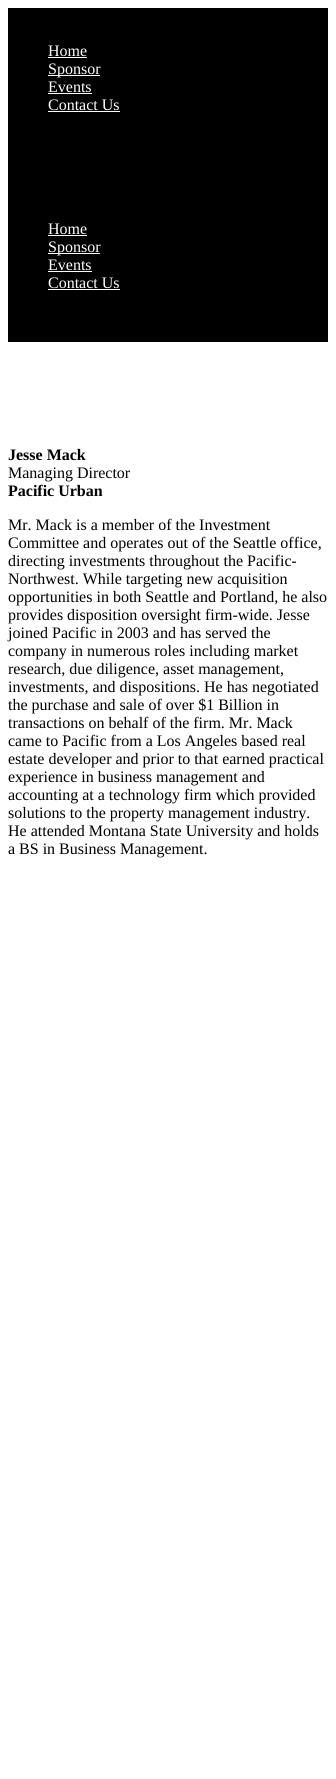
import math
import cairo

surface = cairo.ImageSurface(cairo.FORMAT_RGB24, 336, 1779)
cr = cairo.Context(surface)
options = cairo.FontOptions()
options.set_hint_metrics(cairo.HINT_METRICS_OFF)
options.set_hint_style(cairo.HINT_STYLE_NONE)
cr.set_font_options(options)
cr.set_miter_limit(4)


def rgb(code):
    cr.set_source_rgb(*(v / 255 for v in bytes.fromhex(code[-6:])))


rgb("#ffffff")
cr.paint()
for x, y, w, h, color in [
    (8, 8, 320, 334, "#000000"),
    (48, 57, 39, 1, "#ffffff"),
    (48, 75, 52, 1, "#ffffff"),
    (48, 93, 44, 1, "#ffffff"),
    (48, 111, 72, 1, "#ffffff"),
    (48, 235, 39, 1, "#ffffff"),
    (48, 253, 52, 1, "#ffffff"),
    (48, 271, 44, 1, "#ffffff"),
    (48, 289, 72, 1, "#ffffff"),
]:
    rgb(color)
    cr.rectangle(x, y, w, h)
    cr.fill()
cr.select_font_face("Liberation Serif")
cr.set_font_size(16)
for x, y, s in [
    (48, 56, "Home"),
    (48, 74, "Sponsor"),
    (48, 92, "Events"),
    (48, 110, "Contact Us"),
    (48, 234, "Home"),
    (48, 252, "Sponsor"),
    (48, 270, "Events"),
    (48, 288, "Contact Us"),
]:
    cr.move_to(x, y)
    cr.show_text(s)
cr.select_font_face("Liberation Serif", cairo.FONT_SLANT_NORMAL, cairo.FONT_WEIGHT_BOLD)
rgb("#000000")
cr.move_to(8, 460)
cr.show_text("Jesse Mack")
cr.select_font_face("Liberation Serif")
cr.move_to(8, 478)
cr.show_text("Managing Director")
cr.select_font_face("Liberation Serif", cairo.FONT_SLANT_NORMAL, cairo.FONT_WEIGHT_BOLD)
cr.move_to(8, 496)
cr.show_text("Pacific Urban")
cr.select_font_face("Liberation Serif")
for x, y, s in [
    (8, 530, "Mr. Mack is a member of the Investment"),
    (8, 548, "Committee and operates out of the Seattle office,"),
    (8, 566, "directing investments throughout the Pacific-"),
    (8, 584, "Northwest. While targeting new acquisition"),
    (8, 602, "opportunities in both Seattle and Portland, he also"),
    (8, 620, "provides disposition oversight firm-wide. Jesse"),
    (8, 638, "joined Pacific in 2003 and has served the"),
    (8, 656, "company in numerous roles including market"),
    (8, 674, "research, due diligence, asset management,"),
    (8, 692, "investments, and dispositions. He has negotiated"),
    (8, 710, "the purchase and sale of over $1 Billion in"),
    (8, 728, "transactions on behalf of the firm. Mr. Mack"),
    (8, 746, "came to Pacific from a Los Angeles based real"),
    (8, 764, "estate developer and prior to that earned practical"),
    (8, 782, "experience in business management and"),
    (8, 800, "accounting at a technology firm which provided"),
    (8, 818, "solutions to the property management industry."),
    (8, 836, "He attended Montana State University and holds"),
    (8, 854, "a BS in Business Management."),
]:
    cr.move_to(x, y)
    cr.show_text(s)
surface.write_to_png("page.png")
